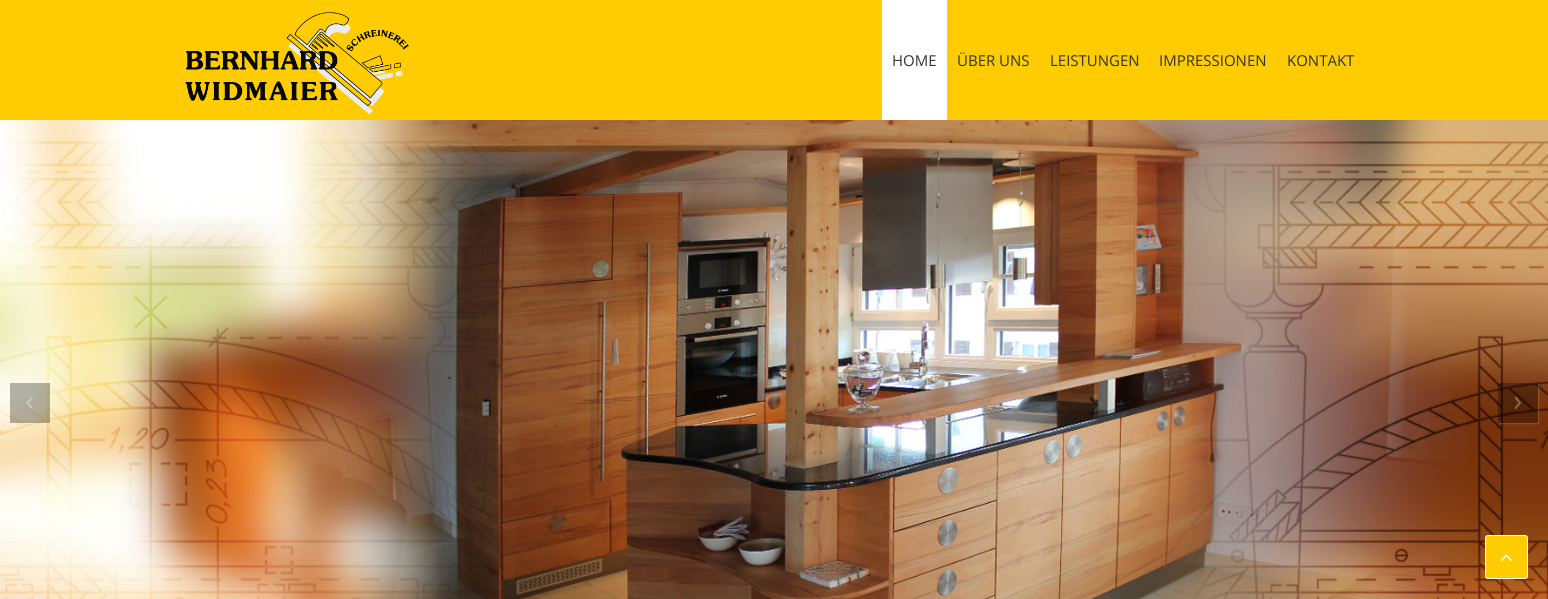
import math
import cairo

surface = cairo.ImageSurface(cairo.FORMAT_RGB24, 1548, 599)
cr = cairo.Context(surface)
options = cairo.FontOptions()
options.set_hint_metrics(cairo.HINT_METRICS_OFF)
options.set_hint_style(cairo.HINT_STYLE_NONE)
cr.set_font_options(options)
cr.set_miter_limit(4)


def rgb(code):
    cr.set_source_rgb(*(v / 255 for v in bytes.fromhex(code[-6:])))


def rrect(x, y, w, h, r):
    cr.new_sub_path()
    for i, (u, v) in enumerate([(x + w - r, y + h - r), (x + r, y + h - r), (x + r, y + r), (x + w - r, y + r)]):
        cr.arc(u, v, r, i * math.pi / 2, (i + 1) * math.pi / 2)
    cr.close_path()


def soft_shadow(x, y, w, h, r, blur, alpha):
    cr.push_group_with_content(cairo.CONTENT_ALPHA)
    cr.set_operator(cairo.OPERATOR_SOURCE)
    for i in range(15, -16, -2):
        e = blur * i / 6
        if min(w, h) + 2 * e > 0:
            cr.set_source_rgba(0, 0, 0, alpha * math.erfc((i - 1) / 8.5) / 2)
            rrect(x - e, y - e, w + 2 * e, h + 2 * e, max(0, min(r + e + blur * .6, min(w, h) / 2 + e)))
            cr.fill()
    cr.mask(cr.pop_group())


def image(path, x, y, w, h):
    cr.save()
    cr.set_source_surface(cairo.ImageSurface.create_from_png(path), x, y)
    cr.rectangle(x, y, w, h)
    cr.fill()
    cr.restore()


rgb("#fecc00")
cr.paint()
image("img/1.png", 185, 12, 224, 103)
rgb("#ffffff")
cr.rectangle(882, 0, 65, 120)
cr.fill()
image("img/2.png", 0, 120, 1548, 479)
cr.save()
cr.set_fill_rule(cairo.FILL_RULE_EVEN_ODD)
cr.new_path()
cr.move_to(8, 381)
cr.line_to(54, 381)
cr.line_to(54, 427)
cr.line_to(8, 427)
cr.close_path()
cr.move_to(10, 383)
cr.line_to(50, 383)
cr.line_to(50, 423)
cr.line_to(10, 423)
cr.close_path()
cr.clip()
rgb("#ffffff")
soft_shadow(11, 384, 40, 40, 0, 0.5, 0.15)
cr.restore()
cr.set_source_rgba(0, 0, 0, 0.3)
cr.rectangle(10, 383, 40, 40)
cr.fill()
cr.save()
cr.set_fill_rule(cairo.FILL_RULE_EVEN_ODD)
cr.new_path()
cr.move_to(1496, 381)
cr.line_to(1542, 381)
cr.line_to(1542, 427)
cr.line_to(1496, 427)
cr.close_path()
cr.move_to(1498, 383)
cr.line_to(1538, 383)
cr.line_to(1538, 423)
cr.line_to(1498, 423)
cr.close_path()
cr.clip()
rgb("#ffffff")
soft_shadow(1499, 384, 40, 40, 0, 0.5, 0.15)
cr.restore()
cr.rectangle(1498, 383, 40, 40)
cr.fill()
rgb("#fecc00")
rrect(1485.5, 535.5, 42, 43, 2.5)
cr.fill_preserve()
rgb("#ffffff")
cr.set_line_width(1)
cr.stroke()
image("img/3.png", 1500, 554, 12, 7)
cr.select_font_face("Open Sans")
cr.set_font_size(15)
rgb("#333333")
for x, y, s in [
    (892, 66, "HOME"),
    (957, 66, "ÜBER UNS"),
    (1050, 66, "LEISTUNGEN"),
    (1159, 66, "IMPRESSIONEN"),
    (1287, 66, "KONTAKT"),
]:
    cr.move_to(x, y)
    cr.show_text(s)
cr.set_font_size(31)
rgb("#c8c5ba")
cr.move_to(25, 411)
cr.show_text("‹")
rgb("#876653")
cr.move_to(1513, 411)
cr.show_text("›")
surface.write_to_png("page.png")
